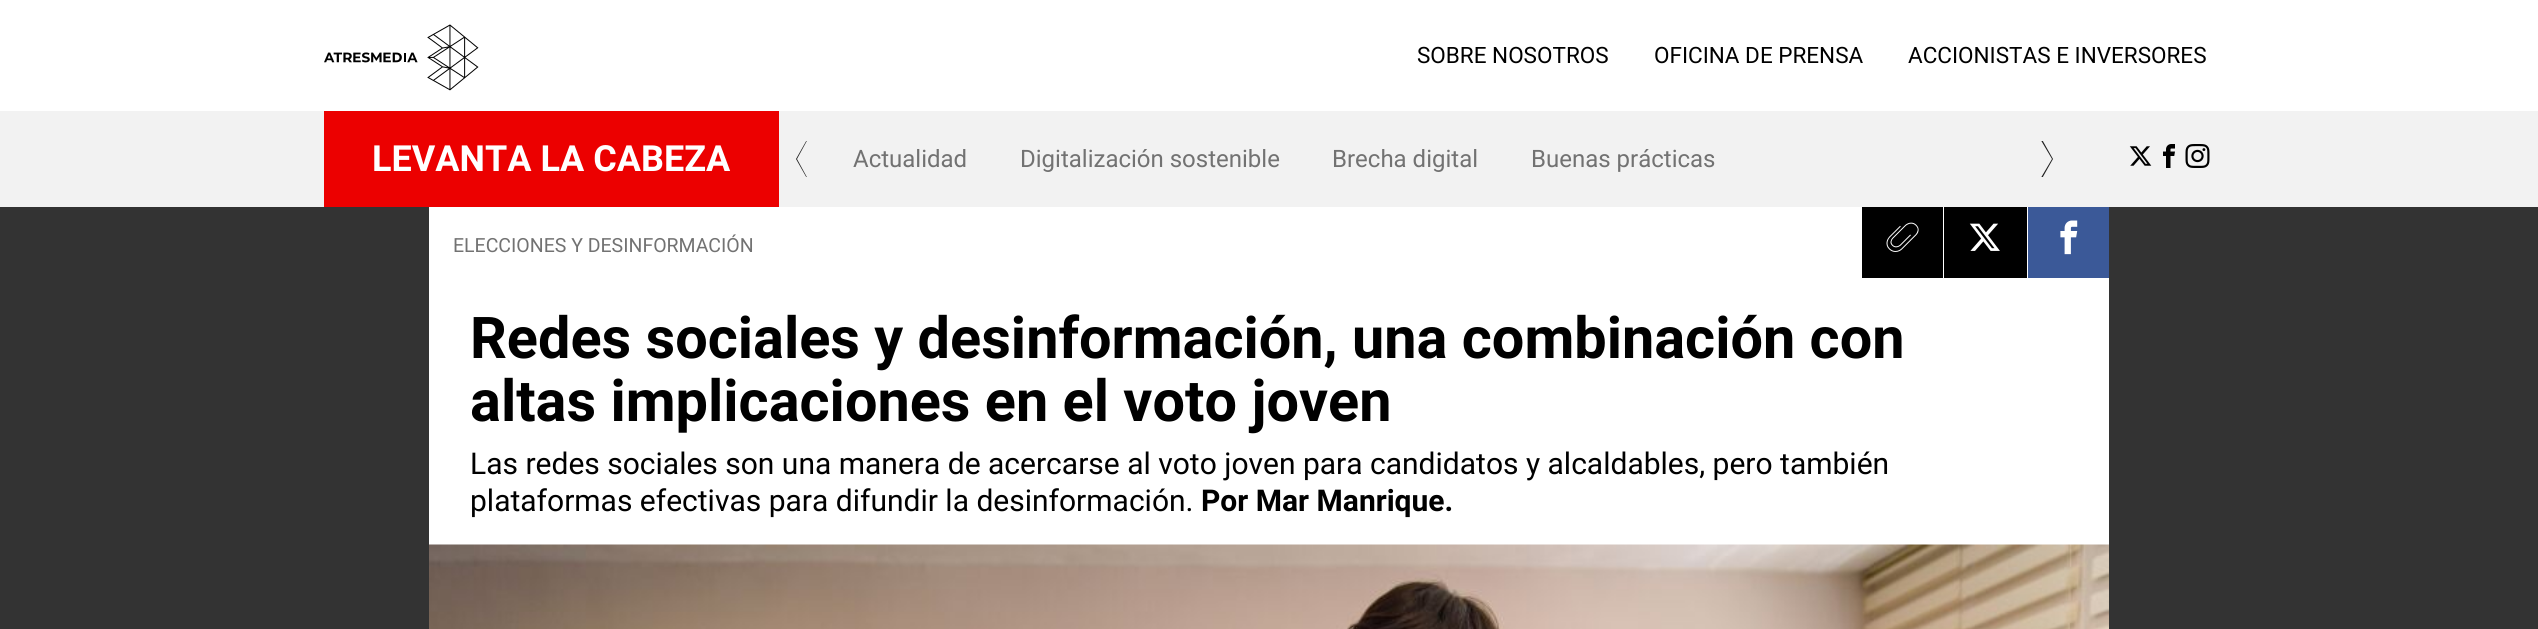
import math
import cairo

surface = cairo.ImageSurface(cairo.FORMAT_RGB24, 2538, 629)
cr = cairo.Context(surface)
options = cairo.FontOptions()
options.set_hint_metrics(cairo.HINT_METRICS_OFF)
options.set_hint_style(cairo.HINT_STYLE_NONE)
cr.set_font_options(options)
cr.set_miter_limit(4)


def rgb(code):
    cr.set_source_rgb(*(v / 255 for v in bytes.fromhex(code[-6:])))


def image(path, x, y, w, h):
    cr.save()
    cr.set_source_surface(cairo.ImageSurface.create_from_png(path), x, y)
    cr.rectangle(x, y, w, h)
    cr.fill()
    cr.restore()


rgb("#333333")
cr.paint()
rgb("#ffffff")
cr.rectangle(0, 0, 2538, 111)
cr.fill()
image("img/1.png", 324, 24, 155, 67)
rgb("#f2f2f2")
cr.rectangle(0, 111, 2538, 96)
cr.fill()
rgb("#ec0000")
cr.rectangle(324, 111, 455, 96)
cr.fill()
cr.save()
cr.rectangle(779, 141, 1291, 36)
cr.clip()
rgb("#1f1f1f")
cr.new_path()
cr.move_to(809, 136)
cr.line_to(809, 137)
cr.line_to(797, 159)
cr.line_to(809, 181)
cr.line_to(809, 182)
cr.line_to(796, 159)
cr.close_path()
cr.fill()
cr.new_path()
cr.move_to(2040, 182)
cr.line_to(2039, 181)
cr.line_to(2052, 159)
cr.line_to(2039, 137)
cr.line_to(2040, 136)
cr.line_to(2053, 159)
cr.close_path()
cr.fill()
cr.restore()
image("img/2.png", 2129, 146, 23, 20)
image("img/3.png", 2163, 144, 12, 24)
image("img/4.png", 2185, 144, 25, 24)
rgb("#ffffff")
cr.rectangle(429, 207, 1680, 338)
cr.fill()
rgb("#000000")
cr.rectangle(1862, 207, 81, 71)
cr.fill()
image("img/5.png", 1886, 222, 33, 30)
cr.rectangle(1944, 207, 83, 71)
cr.fill()
image("img/6.png", 1969, 223, 31, 28)
rgb("#3b5998")
cr.rectangle(2028, 207, 81, 71)
cr.fill()
image("img/7.png", 2060, 220, 18, 35)
image("img/8.png", 429, 544, 1680, 85)
cr.select_font_face("Roboto")
cr.set_font_size(22.5)
rgb("#000000")
for x, y, s in [
    (1417, 63, "SOBRE NOSOTROS"),
    (1654, 63, "OFICINA DE PRENSA"),
    (1908, 63, "ACCIONISTAS E INVERSORES"),
]:
    cr.move_to(x, y)
    cr.show_text(s)
cr.select_font_face("Roboto", cairo.FONT_SLANT_NORMAL, cairo.FONT_WEIGHT_BOLD)
cr.set_font_size(36)
rgb("#ffffff")
cr.move_to(372, 171)
cr.show_text("LEVANTA LA CABEZA")
cr.select_font_face("Roboto")
cr.set_font_size(24)
rgb("#727272")
for x, y, s in [
    (853, 167, "Actualidad"),
    (1020, 167, "Digitalización sostenible"),
    (1332, 167, "Brecha digital"),
    (1531, 167, "Buenas prácticas"),
]:
    cr.move_to(x, y)
    cr.show_text(s)
cr.set_font_size(19.5)
cr.move_to(453, 252)
cr.show_text("ELECCIONES Y DESINFORMACIÓN")
cr.select_font_face("Roboto", cairo.FONT_SLANT_NORMAL, cairo.FONT_WEIGHT_BOLD)
cr.set_font_size(57.6)
rgb("#000000")
cr.move_to(470, 358)
cr.show_text("Redes sociales y desinformación, una combinación con")
cr.move_to(470, 421)
cr.show_text("altas implicaciones en el voto joven")
cr.select_font_face("Roboto")
cr.set_font_size(30)
cr.move_to(470, 474)
cr.show_text("Las redes sociales son una manera de acercarse al voto joven para candidatos y alcaldables, pero también")
cr.move_to(470, 511)
cr.show_text("plataformas efectivas para difundir la desinformación.")
cr.select_font_face("Roboto", cairo.FONT_SLANT_NORMAL, cairo.FONT_WEIGHT_BOLD)
cr.move_to(1201, 511)
cr.show_text("Por Mar Manrique.")
surface.write_to_png("page.png")
